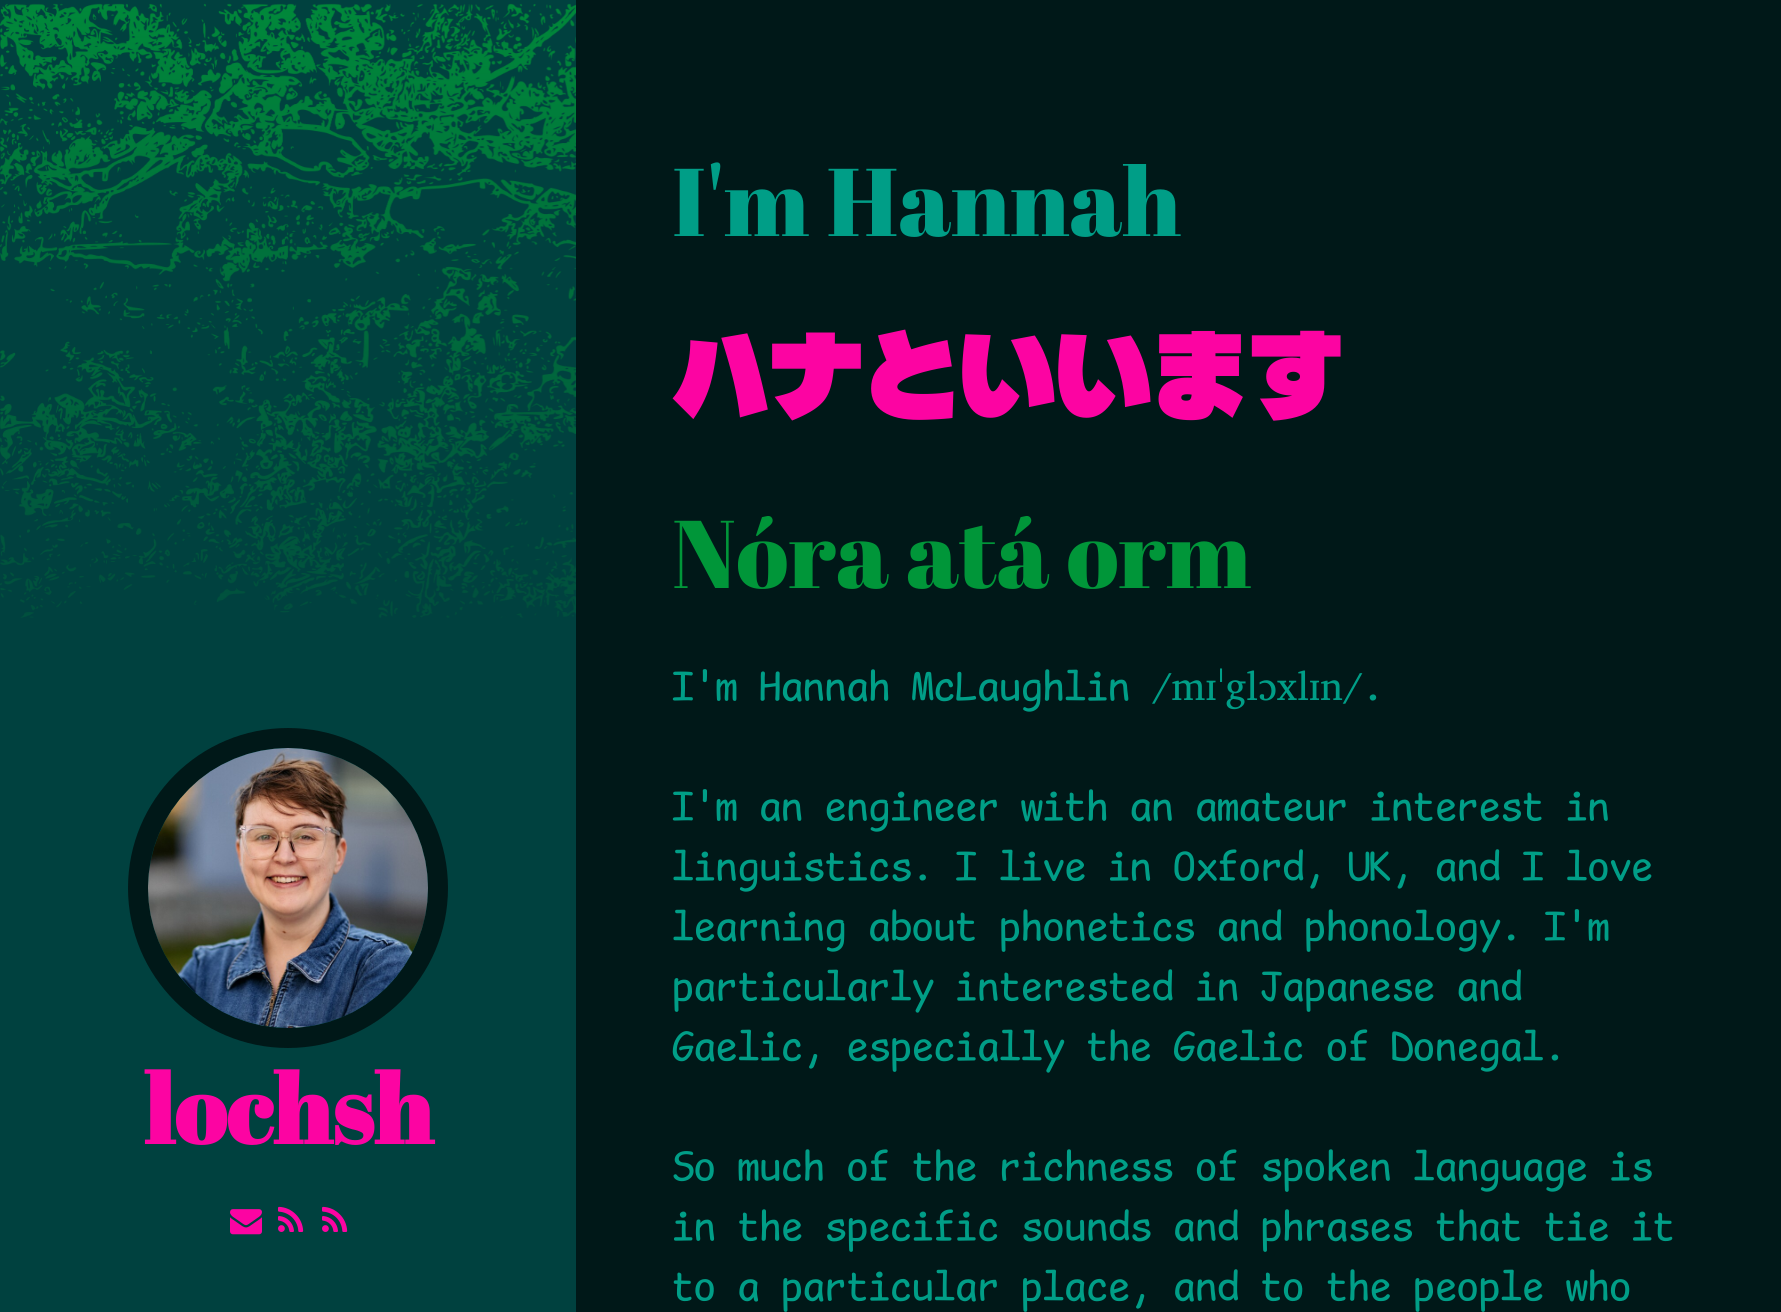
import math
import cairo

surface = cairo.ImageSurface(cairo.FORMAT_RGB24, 1781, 1312)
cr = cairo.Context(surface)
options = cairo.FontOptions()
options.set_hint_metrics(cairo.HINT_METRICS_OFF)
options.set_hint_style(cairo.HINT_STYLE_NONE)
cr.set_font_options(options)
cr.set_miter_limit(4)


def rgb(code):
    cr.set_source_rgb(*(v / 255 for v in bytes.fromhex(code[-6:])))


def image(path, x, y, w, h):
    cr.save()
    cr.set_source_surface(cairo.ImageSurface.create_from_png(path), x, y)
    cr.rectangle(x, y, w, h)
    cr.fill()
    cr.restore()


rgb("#001818")
cr.paint()
rgb("#00413f")
cr.rectangle(0, 0, 576, 1312)
cr.fill()
image("img/1.png", 0, 3, 576, 615)
cr.arc(288, 888, 150, 0, 2 * math.pi)
rgb("#001818")
cr.set_line_width(20)
cr.stroke()
image("img/2.png", 148, 748, 280, 280)
image("img/3.png", 230, 1209, 32, 26)
image("img/4.png", 278, 1206, 26, 26)
image("img/4.png", 322, 1206, 26, 26)
cr.select_font_face("Abril Fatface", cairo.FONT_SLANT_NORMAL, cairo.FONT_WEIGHT_BOLD)
cr.set_font_size(96)
rgb("#fc04a2")
cr.move_to(144, 1144)
cr.show_text("lochsh")
cr.select_font_face("Abril Fatface")
rgb("#009e87")
cr.move_to(672, 236)
cr.show_text("I'm Hannah")
cr.select_font_face("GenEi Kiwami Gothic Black")
rgb("#fc04a2")
cr.move_to(672, 412)
cr.show_text("ハナといいます")
cr.select_font_face("Abril Fatface")
rgb("#009639")
cr.move_to(672, 588)
cr.show_text("Nóra atá orm")
cr.select_font_face("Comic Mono")
cr.set_font_size(40)
rgb("#009e87")
cr.move_to(672, 700)
cr.show_text("I'm Hannah McLaughlin")
cr.select_font_face("Charis SIL")
cr.move_to(1152, 700)
cr.show_text("/mɪˈglɔxlɪn/")
cr.select_font_face("Comic Mono")
for x, y, s in [
    (1362, 700, "."),
    (672, 820, "I'm an engineer with an amateur interest in"),
    (672, 880, "linguistics. I live in Oxford, UK, and I love"),
    (672, 940, "learning about phonetics and phonology. I'm"),
    (672, 1000, "particularly interested in Japanese and"),
    (672, 1060, "Gaelic, especially the Gaelic of Donegal."),
    (672, 1180, "So much of the richness of spoken language is"),
    (672, 1240, "in the specific sounds and phrases that tie it"),
    (672, 1300, "to a particular place, and to the people who"),
]:
    cr.move_to(x, y)
    cr.show_text(s)
surface.write_to_png("page.png")
